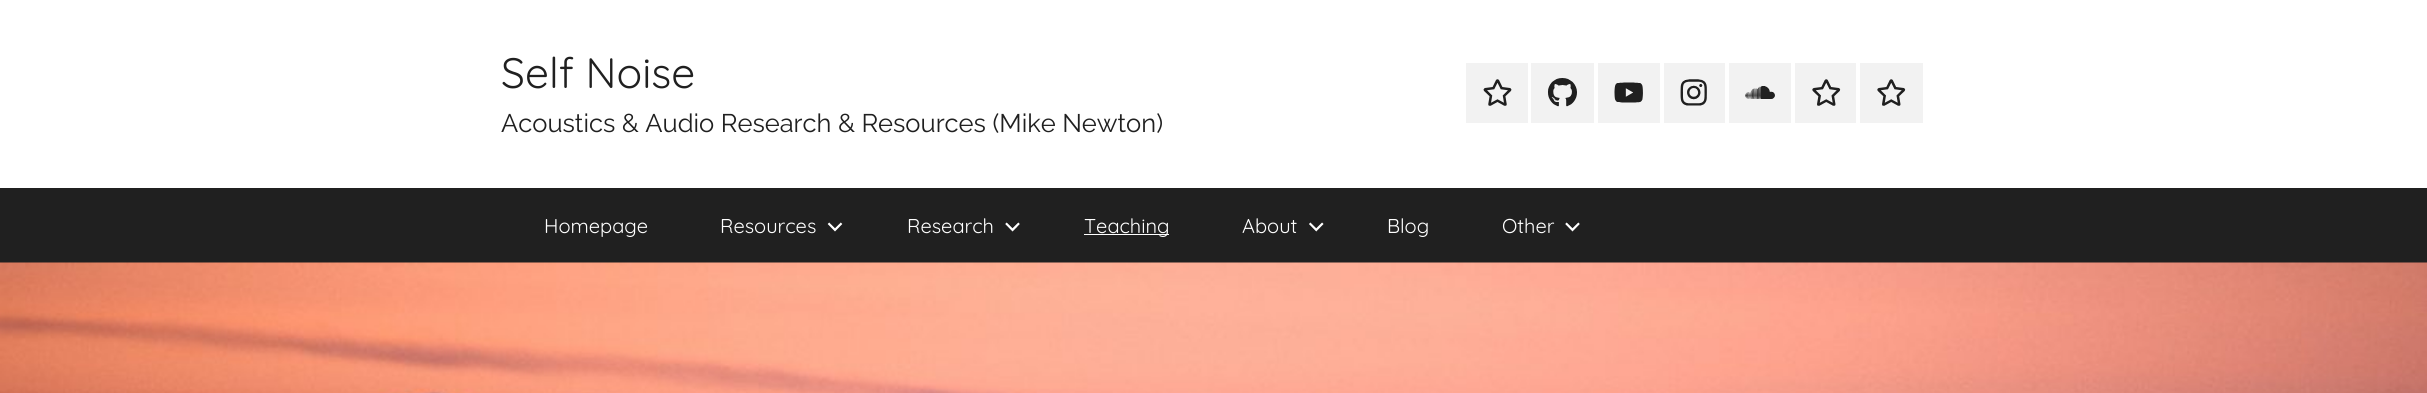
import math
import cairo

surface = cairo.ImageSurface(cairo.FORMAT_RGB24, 2427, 393)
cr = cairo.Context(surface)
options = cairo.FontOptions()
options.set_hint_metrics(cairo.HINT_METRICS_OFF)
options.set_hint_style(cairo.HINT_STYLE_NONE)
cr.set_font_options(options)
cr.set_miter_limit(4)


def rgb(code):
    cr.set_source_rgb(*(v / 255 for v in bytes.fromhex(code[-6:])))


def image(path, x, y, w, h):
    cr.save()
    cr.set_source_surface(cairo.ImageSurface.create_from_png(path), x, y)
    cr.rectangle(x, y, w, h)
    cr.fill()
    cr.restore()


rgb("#ffffff")
cr.paint()
rgb("#f2f2f2")
cr.rectangle(1466, 63, 62, 60)
cr.fill()
image("img/1.png", 1483, 79, 29, 27)
cr.rectangle(1531, 63, 63, 60)
cr.fill()
image("img/2.png", 1548, 78, 29, 29)
cr.rectangle(1598, 63, 62, 60)
cr.fill()
image("img/3.png", 1614, 82, 29, 21)
cr.rectangle(1664, 63, 61, 60)
cr.fill()
image("img/4.png", 1680, 79, 27, 27)
cr.rectangle(1729, 63, 62, 60)
cr.fill()
image("img/5.png", 1745, 86, 30, 13)
cr.rectangle(1795, 63, 61, 60)
cr.fill()
image("img/6.png", 1812, 79, 29, 27)
cr.rectangle(1860, 63, 63, 60)
cr.fill()
image("img/6.png", 1877, 79, 29, 27)
rgb("#202020")
cr.rectangle(0, 188, 2427, 75)
cr.fill()
image("img/7.png", 827, 222, 16, 10)
image("img/8.png", 1005, 222, 15, 10)
rgb("#ffffff")
cr.rectangle(1084, 234, 85, 1)
cr.fill()
image("img/9.png", 1309, 222, 15, 10)
image("img/10.png", 1565, 222, 15, 10)
image("img/11.png", 0, 262, 2427, 131)
cr.select_font_face("Quicksand")
cr.set_font_size(42.5)
rgb("#202020")
cr.move_to(501, 88)
cr.show_text("Self Noise")
cr.select_font_face("Raleway")
cr.set_font_size(25.5)
cr.move_to(501, 132)
cr.show_text("Acoustics & Audio Research & Resources (Mike Newton)")
cr.select_font_face("Quicksand")
cr.set_font_size(20)
rgb("#ffffff")
for x, y, s in [
    (544, 233, "Homepage"),
    (720, 233, "Resources"),
    (907, 233, "Research"),
    (1084, 233, "Teaching"),
    (1242, 233, "About"),
    (1387, 233, "Blog"),
    (1502, 233, "Other"),
]:
    cr.move_to(x, y)
    cr.show_text(s)
surface.write_to_png("page.png")
